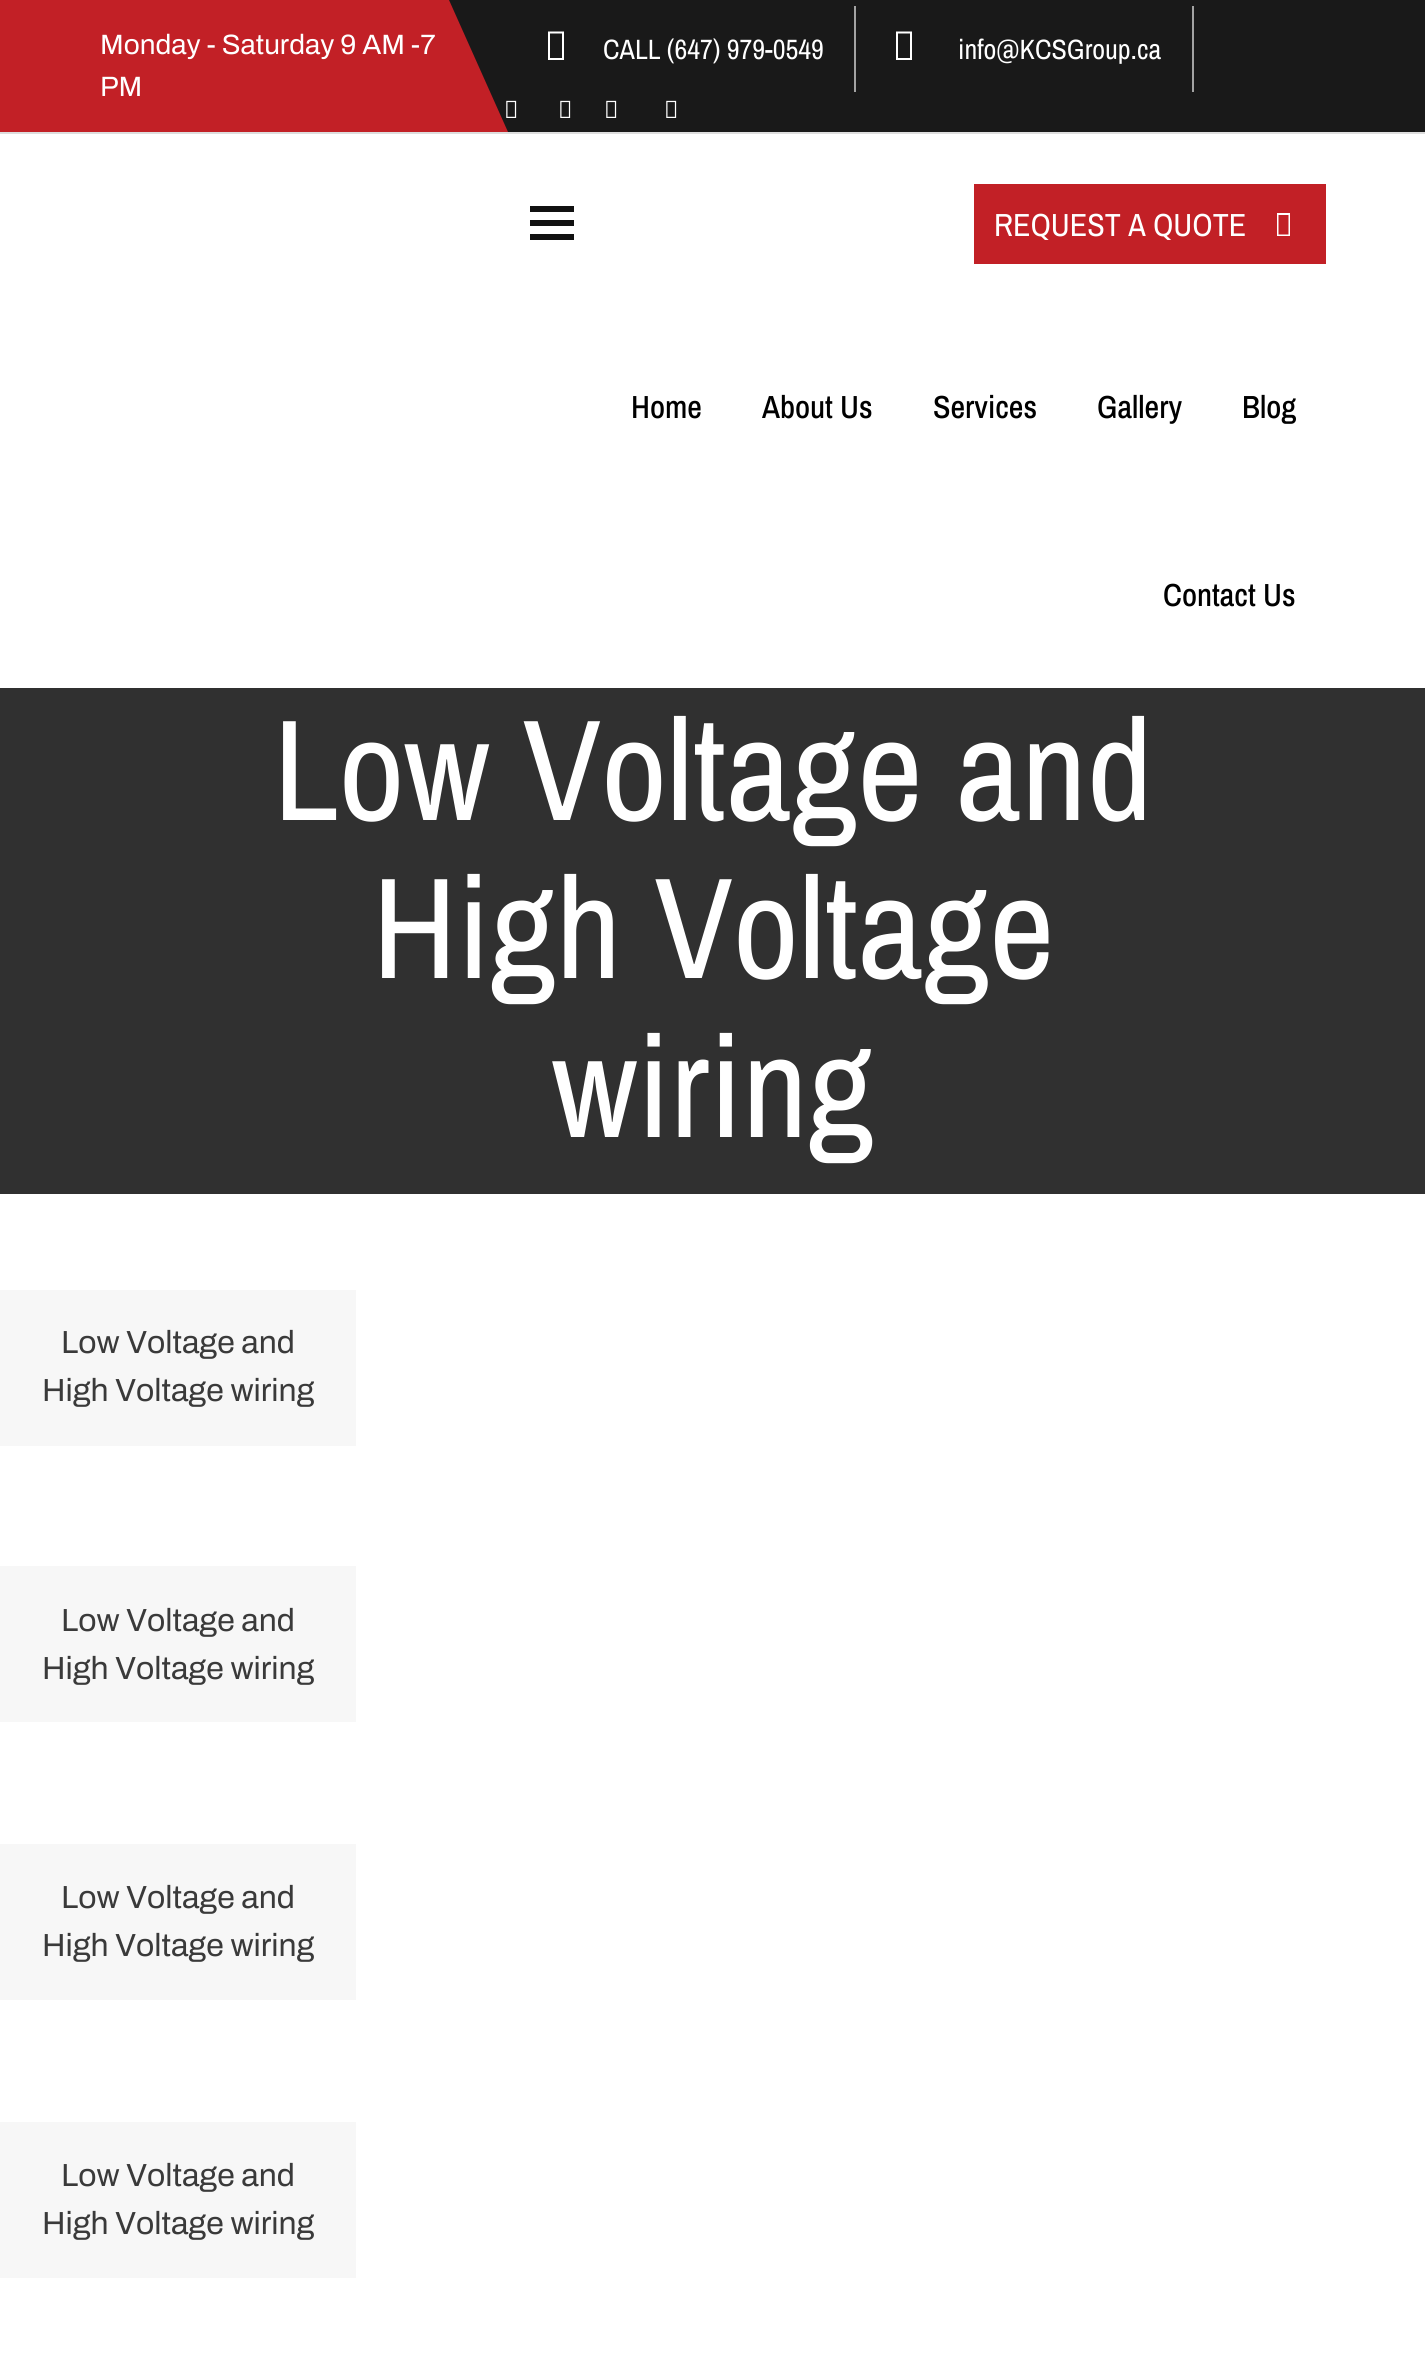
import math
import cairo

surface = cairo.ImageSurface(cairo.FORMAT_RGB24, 1425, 2372)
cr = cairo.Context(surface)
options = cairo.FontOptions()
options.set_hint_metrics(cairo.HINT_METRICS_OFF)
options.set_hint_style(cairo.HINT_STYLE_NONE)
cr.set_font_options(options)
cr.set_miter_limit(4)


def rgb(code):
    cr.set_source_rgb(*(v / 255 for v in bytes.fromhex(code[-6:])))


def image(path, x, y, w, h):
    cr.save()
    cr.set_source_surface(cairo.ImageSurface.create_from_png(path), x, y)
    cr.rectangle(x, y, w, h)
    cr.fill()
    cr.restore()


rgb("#ffffff")
cr.paint()
rgb("#191919")
cr.rectangle(449, 0, 976, 132)
cr.fill()
image("img/1.png", 506, 100, 11, 18)
rgb("#c22026")
cr.new_path()
cr.move_to(-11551, 0)
cr.line_to(449, 0)
cr.line_to(508, 132)
cr.line_to(-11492, 132)
cr.close_path()
cr.fill()
rgb("#a3a3a3")
cr.rectangle(854, 6, 2, 86)
cr.fill()
rgb("#ffffff")
cr.new_path()
cr.move_to(548, 60)
cr.line_to(548, 31.5)
cr.line_to(564, 31.5)
cr.line_to(564, 60)
cr.close_path()
cr.move_to(550, 58)
cr.line_to(562, 58)
cr.line_to(562, 33.5)
cr.line_to(550, 33.5)
cr.close_path()
cr.fill()
rgb("#a3a3a3")
cr.rectangle(1192, 6, 2, 86)
cr.fill()
rgb("#ffffff")
cr.new_path()
cr.move_to(896, 60)
cr.line_to(896, 31.5)
cr.line_to(912, 31.5)
cr.line_to(912, 60)
cr.close_path()
cr.move_to(898, 58)
cr.line_to(910, 58)
cr.line_to(910, 33.5)
cr.line_to(898, 33.5)
cr.close_path()
cr.fill()
image("img/1.png", 560, 100, 11, 18)
image("img/1.png", 606, 100, 11, 18)
image("img/1.png", 666, 100, 11, 18)
for x, y, w, h, color in [
    (0, 132, 1425, 2, "#dddddd"),
    (530, 206, 44, 6, "#111111"),
    (530, 220, 44, 6, "#111111"),
    (530, 234, 44, 6, "#111111"),
    (974, 184, 352, 80, "#c22026"),
]:
    rgb(color)
    cr.rectangle(x, y, w, h)
    cr.fill()
rgb("#ffffff")
cr.new_path()
cr.move_to(1277, 236)
cr.line_to(1277, 213)
cr.line_to(1290, 213)
cr.line_to(1290, 236)
cr.close_path()
cr.move_to(1278.5, 234.5)
cr.line_to(1288.5, 234.5)
cr.line_to(1288.5, 215)
cr.line_to(1278.5, 215)
cr.close_path()
cr.fill()
for x, y, w, h, color in [
    (0, 688, 1425, 506, "#303030"),
    (0, 1290, 356, 156, "#f7f7f7"),
    (0, 1566, 356, 156, "#f7f7f7"),
    (0, 1844, 356, 156, "#f7f7f7"),
    (0, 2122, 356, 156, "#f7f7f7"),
]:
    rgb(color)
    cr.rectangle(x, y, w, h)
    cr.fill()
cr.select_font_face("Archivo")
cr.set_font_size(28)
rgb("#ffffff")
cr.move_to(100, 54)
cr.show_text("Monday - Saturday 9 AM -7")
cr.move_to(100, 96)
cr.show_text("PM")
cr.select_font_face("Archivo Narrow")
cr.move_to(603, 59)
cr.show_text("CALL (647) 979-0549")
cr.move_to(958, 59)
cr.show_text("info@KCSGroup.ca")
cr.set_font_size(32)
cr.move_to(994, 236)
cr.show_text("REQUEST A QUOTE")
cr.select_font_face("Archivo Narrow Medium")
rgb("#000000")
for x, y, s in [
    (631, 418, "Home"),
    (762, 418, "About Us"),
    (933, 418, "Services"),
    (1097, 418, "Gallery"),
    (1242, 418, "Blog"),
    (1163, 606, "Contact Us"),
]:
    cr.move_to(x, y)
    cr.show_text(s)
cr.select_font_face("Archivo Narrow")
cr.set_font_size(144)
rgb("#ffffff")
for x, y, s in [
    (273, 820, "Low Voltage and"),
    (372, 978, "High Voltage"),
    (552, 1137, "wiring"),
]:
    cr.move_to(x, y)
    cr.show_text(s)
cr.select_font_face("Archivo")
cr.set_font_size(32)
rgb("#3a3a3a")
for x, y, s in [
    (61, 1353, "Low Voltage and"),
    (42, 1401, "High Voltage wiring"),
    (61, 1631, "Low Voltage and"),
    (42, 1679, "High Voltage wiring"),
    (61, 1908, "Low Voltage and"),
    (42, 1956, "High Voltage wiring"),
    (61, 2186, "Low Voltage and"),
    (42, 2234, "High Voltage wiring"),
]:
    cr.move_to(x, y)
    cr.show_text(s)
surface.write_to_png("page.png")
